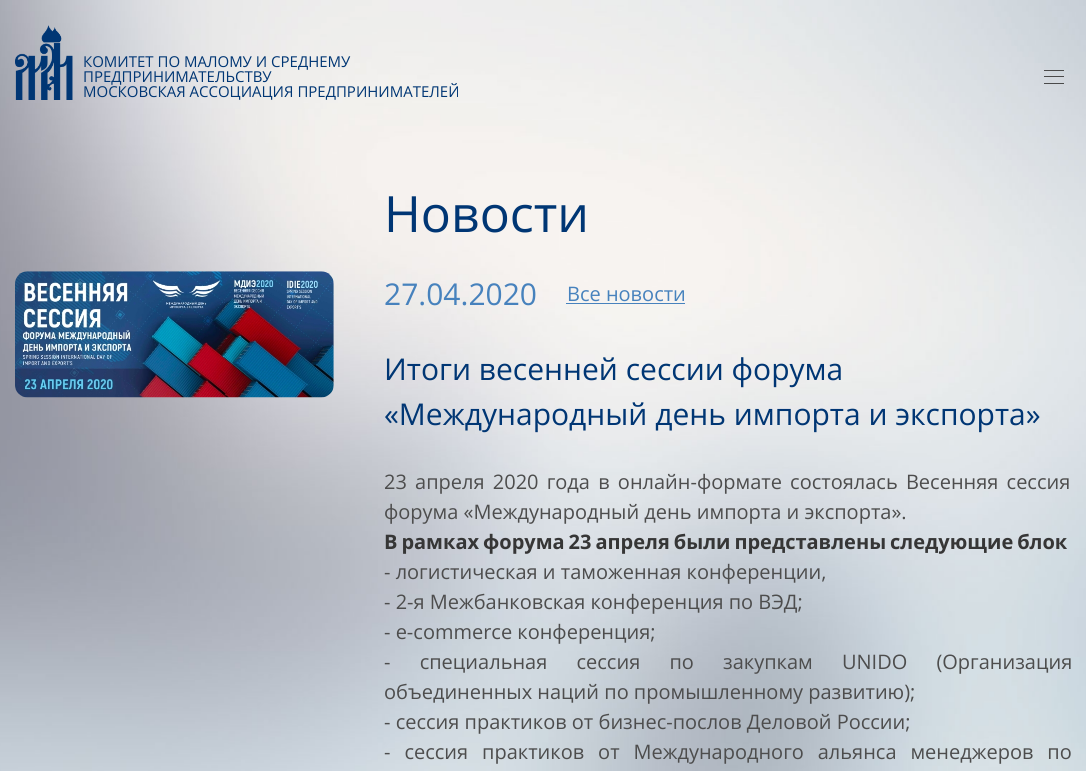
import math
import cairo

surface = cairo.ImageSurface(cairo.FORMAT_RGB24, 1086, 771)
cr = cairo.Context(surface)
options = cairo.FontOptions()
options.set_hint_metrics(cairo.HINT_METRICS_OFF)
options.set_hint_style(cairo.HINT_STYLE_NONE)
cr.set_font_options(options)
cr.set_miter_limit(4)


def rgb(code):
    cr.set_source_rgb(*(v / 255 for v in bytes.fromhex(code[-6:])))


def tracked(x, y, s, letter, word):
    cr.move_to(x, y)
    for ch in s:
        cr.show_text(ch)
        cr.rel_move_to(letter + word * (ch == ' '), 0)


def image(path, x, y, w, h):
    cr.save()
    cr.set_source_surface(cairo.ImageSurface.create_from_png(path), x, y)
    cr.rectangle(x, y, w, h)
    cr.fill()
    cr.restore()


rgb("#ffffff")
cr.paint()
image("img/1.png", 0, 0, 1086, 771)
image("img/2.png", 15, 25, 58, 75)
for x, y, w, h, color in [
    (1044, 70, 20, 1, "#4a4a4a"),
    (1044, 76, 20, 1, "#4a4a4a"),
    (1044, 83, 20, 1, "#4a4a4a"),
]:
    rgb(color)
    cr.rectangle(x, y, w, h)
    cr.fill()
image("img/3.png", 15, 271, 319, 127)
rgb("#4782bd")
cr.rectangle(566, 303, 119, 1)
cr.fill()
cr.select_font_face("Open Sans")
cr.set_font_size(15)
rgb("#003674")
for x, y, s in [
    (83, 67, "КОМИТЕТ ПО МАЛОМУ И СРЕДНЕМУ"),
    (83, 82, "ПРЕДПРИНИМАТЕЛЬСТВУ"),
    (83, 97, "МОСКОВСКАЯ АССОЦИАЦИЯ ПРЕДПРИНИМАТЕЛЕЙ"),
]:
    cr.move_to(x, y)
    cr.show_text(s)
cr.set_font_size(50)
cr.move_to(384, 232)
cr.show_text("Новости")
cr.set_font_size(30)
rgb("#4782bd")
cr.move_to(384, 305)
cr.show_text("27.04.2020")
cr.set_font_size(20)
cr.move_to(567, 301)
cr.show_text("Все новости")
cr.set_font_size(30)
rgb("#003674")
cr.move_to(384, 380)
cr.show_text("Итоги весенней сессии форума")
cr.move_to(384, 425)
cr.show_text("«Международный день импорта и экспорта»")
cr.set_font_size(20)
rgb("#4d4d4d")
tracked(384, 489, "23 апреля 2020 года в онлайн-формате состоялась Весенняя сессия", 0, 3)
cr.move_to(384, 519)
cr.show_text("форума «Международный день импорта и экспорта».")
cr.select_font_face("Open Sans", cairo.FONT_SLANT_NORMAL, cairo.FONT_WEIGHT_BOLD)
rgb("#363636")
tracked(384, 549, "В рамках форума 23 апреля были представлены следующие блок", 0, -1.25)
cr.select_font_face("Open Sans")
rgb("#4d4d4d")
for x, y, s in [
    (384, 579, "- логистическая и таможенная конференции,"),
    (384, 609, "- 2-я Межбанковская конференция по ВЭД;"),
    (384, 639, "- e-commerce конференция;"),
]:
    cr.move_to(x, y)
    cr.show_text(s)
tracked(384, 669, "- специальная сессия по закупкам UNIDO (Организация", 0, 24)
cr.move_to(384, 699)
cr.show_text("объединенных наций по промышленному развитию);")
cr.move_to(384, 729)
cr.show_text("- сессия практиков от бизнес-послов Деловой России;")
tracked(384, 759, "- сессия практиков от Международного альянса менеджеров по", 0, 8.75)
surface.write_to_png("page.png")
